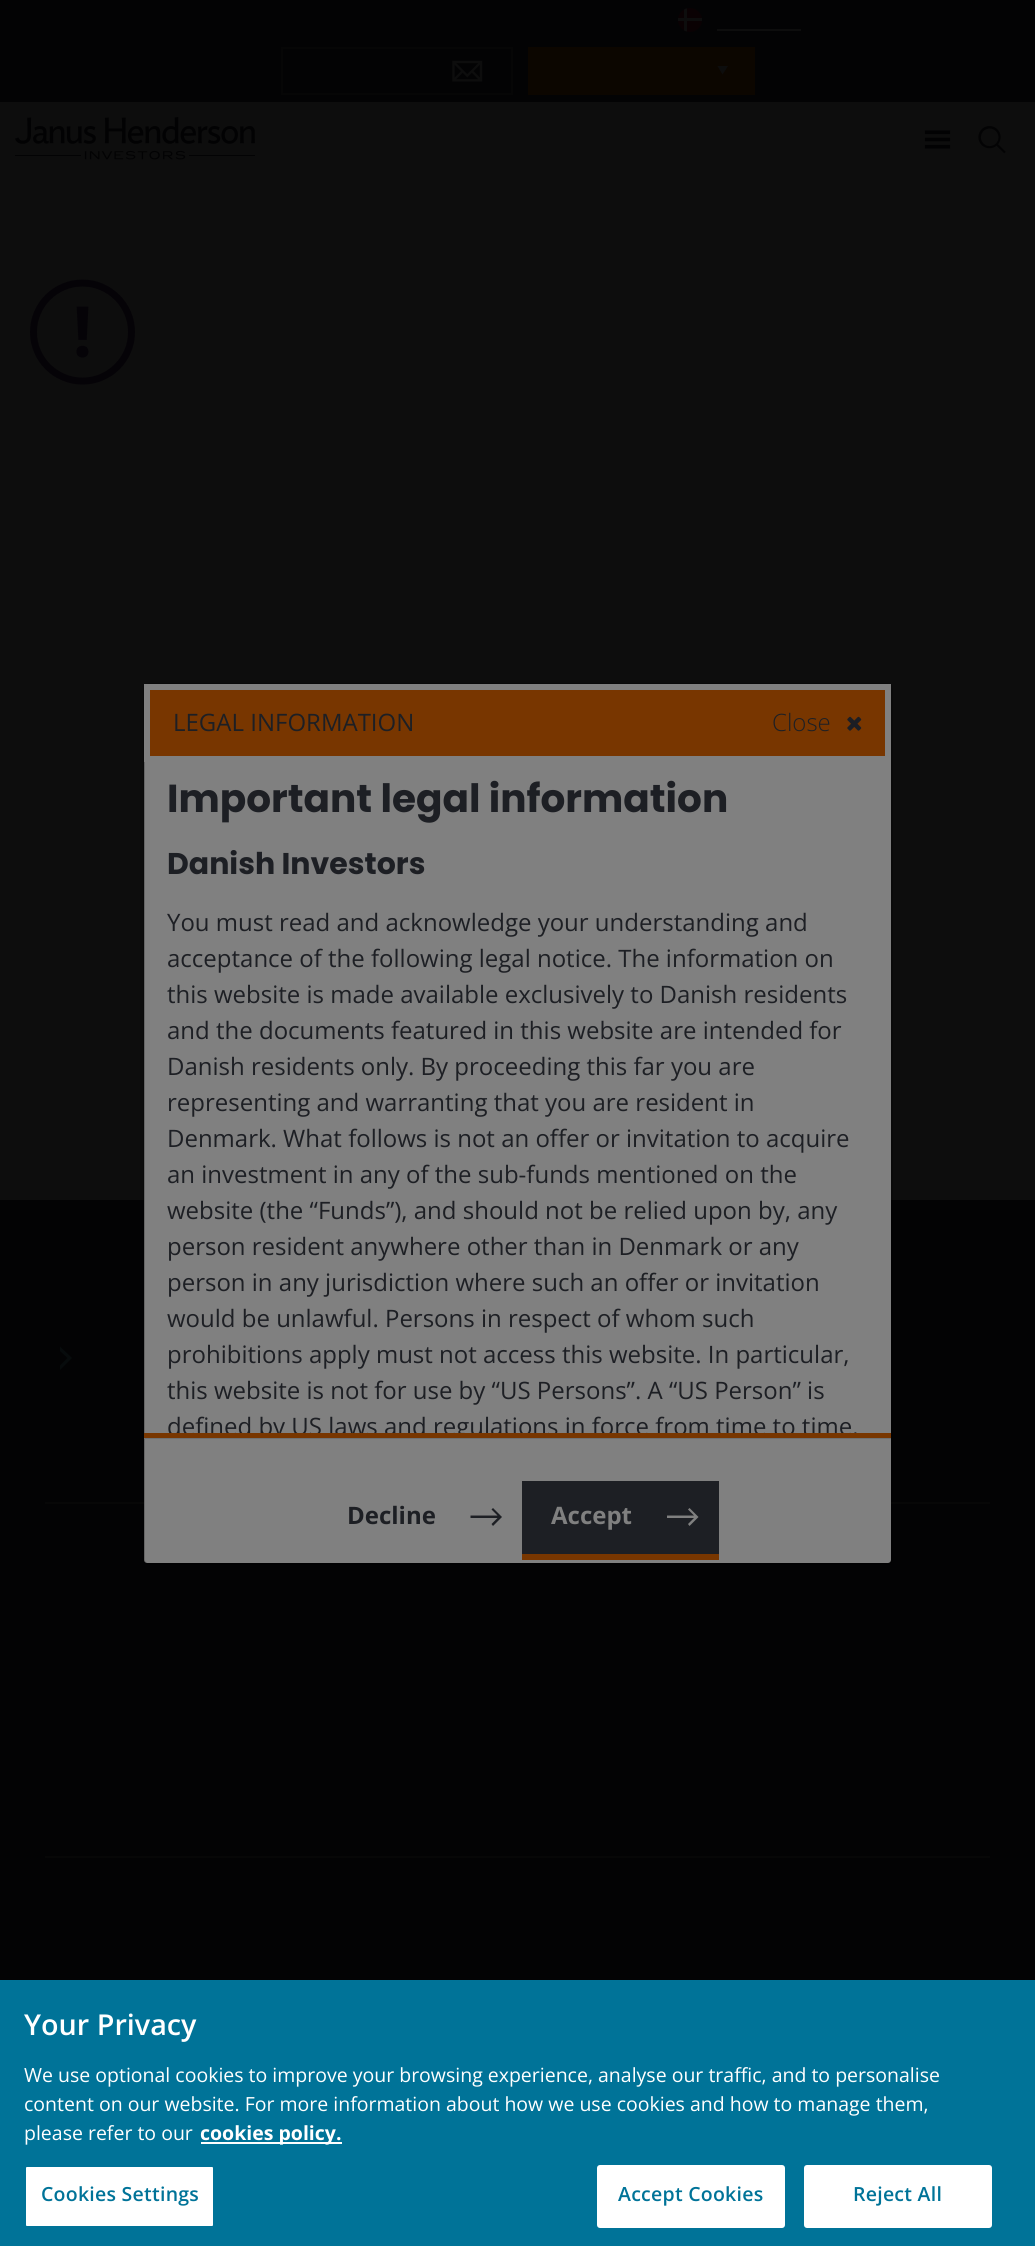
import math
import cairo

surface = cairo.ImageSurface(cairo.FORMAT_RGB24, 1035, 2246)
cr = cairo.Context(surface)
options = cairo.FontOptions()
options.set_hint_metrics(cairo.HINT_METRICS_OFF)
options.set_hint_style(cairo.HINT_STYLE_NONE)
cr.set_font_options(options)
cr.set_miter_limit(4)


def rgb(code):
    cr.set_source_rgb(*(v / 255 for v in bytes.fromhex(code[-6:])))


def tracked(x, y, s, letter, word):
    cr.move_to(x, y)
    for ch in s:
        cr.show_text(ch)
        cr.rel_move_to(letter + word * (ch == ' '), 0)


def rrect(x, y, w, h, r):
    cr.new_sub_path()
    for i, (u, v) in enumerate([(x + w - r, y + h - r), (x + r, y + h - r), (x + r, y + r), (x + w - r, y + r)]):
        cr.arc(u, v, r, i * math.pi / 2, (i + 1) * math.pi / 2)
    cr.close_path()


def image(path, x, y, w, h):
    cr.save()
    cr.set_source_surface(cairo.ImageSurface.create_from_png(path), x, y)
    cr.rectangle(x, y, w, h)
    cr.fill()
    cr.restore()


rgb("#0d0d0d")
cr.paint()
rgb("#030304")
cr.rectangle(0, 0, 1035, 102)
cr.fill()
rgb("#0a0103")
cr.arc(690, 20, 12, 0, 2 * math.pi)
cr.fill()
cr.save()
rrect(678, 8, 24, 24, 12)
cr.clip()
rgb("#0d0d0d")
cr.rectangle(684, 8, 3, 24)
cr.fill()
cr.restore()
rgb("#0d0d0d")
cr.rectangle(678, 18, 24, 3)
cr.fill()
cr.rectangle(717, 29, 84, 2)
cr.fill()
cr.rectangle(282, 48, 230, 46)
rgb("#060606")
cr.stroke()
image("img/1.png", 452, 60, 31, 22)
rgb("#0c0600")
cr.rectangle(528, 47, 227, 48)
cr.fill()
rgb("#0d0d0d")
cr.new_path()
cr.move_to(717.5, 66)
cr.line_to(722.5, 74.5)
cr.line_to(728, 66)
cr.close_path()
cr.fill()
image("img/2.png", 15, 117, 240, 43)
image("img/3.png", 924, 130, 27, 19)
image("img/4.png", 978, 126, 28, 28)
image("img/5.png", 30, 279, 105, 106)
rgb("#030304")
cr.rectangle(0, 1200, 1035, 780)
cr.fill()
rgb("#070707")
cr.rectangle(45, 1502, 945, 2)
cr.fill()
rgb("#808080")
rrect(144, 684, 747, 879, 3)
cr.fill()
rrect(144, 684, 748, 880, 4)
cr.set_source_rgba(0, 0, 0, 0.2)
cr.stroke()
rgb("#783600")
cr.new_path()
cr.move_to(147, 687)
cr.line_to(888, 687)
cr.line_to(888, 759)
cr.line_to(147, 759)
cr.close_path()
cr.fill_preserve()
rgb("#808080")
cr.set_line_width(6)
cr.stroke()
image("img/6.png", 847, 716, 15, 15)
rgb("#783600")
cr.rectangle(144, 1433, 747, 5)
cr.fill()
rgb("#6f7173")
cr.rectangle(144, 1438, 747, 1)
cr.fill()
rgb("#1d1f24")
cr.new_path()
cr.move_to(493, 1508)
cr.line_to(491.5, 1509.5)
cr.line_to(497.5, 1515.5)
cr.line_to(470.5, 1515.5)
cr.line_to(470.5, 1518)
cr.line_to(497.5, 1518)
cr.line_to(491.5, 1524)
cr.line_to(493, 1526)
cr.line_to(502, 1517)
cr.close_path()
cr.fill()
cr.rectangle(522, 1481, 197, 73)
cr.fill()
rgb("#808080")
cr.new_path()
cr.move_to(689.5, 1508)
cr.line_to(688, 1509.5)
cr.line_to(694, 1515.5)
cr.line_to(667, 1515.5)
cr.line_to(667, 1518)
cr.line_to(694, 1518)
cr.line_to(688, 1524)
cr.line_to(689.5, 1526)
cr.line_to(698.5, 1517)
cr.close_path()
cr.fill()
rgb("#783600")
cr.rectangle(522, 1554, 197, 6)
cr.fill()
rgb("#070b0c")
cr.new_path()
cr.move_to(60, 1346.5)
cr.line_to(72, 1358)
cr.line_to(67.5, 1358)
cr.line_to(60, 1351)
cr.close_path()
cr.move_to(72, 1358)
cr.line_to(60, 1370)
cr.line_to(60, 1365.5)
cr.line_to(67.5, 1358)
cr.close_path()
cr.fill()
for x, y, w, h, color in [
    (45, 1856, 945, 2, "#070707"),
    (0, 1980, 1035, 266, "#007398"),
    (201, 2142, 141, 2, "#ffffff"),
]:
    rgb(color)
    cr.rectangle(x, y, w, h)
    cr.fill()
rrect(25, 2166, 189, 61, 2)
cr.fill_preserve()
rgb("#007398")
cr.set_line_width(2)
cr.stroke()
rgb("#ffffff")
rrect(598, 2166, 186, 61, 2)
cr.fill_preserve()
cr.stroke()
rrect(805, 2166, 186, 61, 2)
cr.fill_preserve()
cr.stroke()
cr.select_font_face("Open Sans")
cr.set_font_size(24)
rgb("#1d1f24")
cr.move_to(173, 731)
cr.show_text("LEGAL INFORMATION")
cr.select_font_face("Open Sans Light")
cr.move_to(772, 731)
cr.show_text("Close")
cr.select_font_face("Poppins", cairo.FONT_SLANT_NORMAL, cairo.FONT_WEIGHT_BOLD)
cr.set_font_size(39)
cr.move_to(167, 812)
cr.show_text("Important legal information")
cr.set_font_size(30)
cr.move_to(167, 874)
cr.show_text("Danish Investors")
cr.select_font_face("Open Sans")
cr.set_font_size(24)
for x, y, s in [
    (167, 931, "You must read and acknowledge your understanding and"),
    (167, 967, "acceptance of the following legal notice. The information on"),
    (167, 1003, "this website is made available exclusively to Danish residents"),
    (167, 1039, "and the documents featured in this website are intended for"),
    (167, 1075, "Danish residents only. By proceeding this far you are"),
    (167, 1111, "representing and warranting that you are resident in"),
    (167, 1147, "Denmark. What follows is not an offer or invitation to acquire"),
    (167, 1183, "an investment in any of the sub-funds mentioned on the"),
    (167, 1219, "website (the “Funds”), and should not be relied upon by, any"),
    (167, 1255, "person resident anywhere other than in Denmark or any"),
    (167, 1291, "person in any jurisdiction where such an offer or invitation"),
    (167, 1327, "would be unlawful. Persons in respect of whom such"),
    (167, 1363, "prohibitions apply must not access this website. In particular,"),
    (167, 1399, "this website is not for use by “US Persons”. A “US Person” is"),
]:
    cr.move_to(x, y)
    cr.show_text(s)
cr.save()
cr.rectangle(167, 777, 717, 656)
cr.clip()
cr.move_to(167, 1435)
cr.show_text("defined by US laws and regulations in force from time to time.")
cr.restore()
cr.select_font_face("Open Sans", cairo.FONT_SLANT_NORMAL, cairo.FONT_WEIGHT_BOLD)
cr.move_to(347, 1524)
cr.show_text("Decline")
rgb("#808080")
cr.move_to(551, 1524)
cr.show_text("Accept")
cr.select_font_face("Open Sans SemiBold")
cr.set_font_size(28.75)
rgb("#ffffff")
cr.move_to(24, 2035)
cr.show_text("Your Privacy")
cr.select_font_face("Open Sans")
cr.set_font_size(19.5)
for x, y, s in [
    (24, 2082, "We use optional cookies to improve your browsing experience, analyse our traffic, and to personalise"),
    (24, 2111, "content on our website. For more information about how we use cookies and how to manage them,"),
    (24, 2140, "please refer to our"),
]:
    cr.move_to(x, y)
    cr.show_text(s)
cr.select_font_face("Open Sans", cairo.FONT_SLANT_NORMAL, cairo.FONT_WEIGHT_BOLD)
cr.move_to(200, 2140)
cr.show_text("cookies policy.")
cr.select_font_face("Open Sans SemiBold")
rgb("#007398")
for x, y, s in [
    (41, 2201, "Cookies Settings"),
    (618, 2201, "Accept Cookies"),
    (853, 2201, "Reject All"),
]:
    tracked(x, y, s, 0.25, 0)
surface.write_to_png("page.png")
